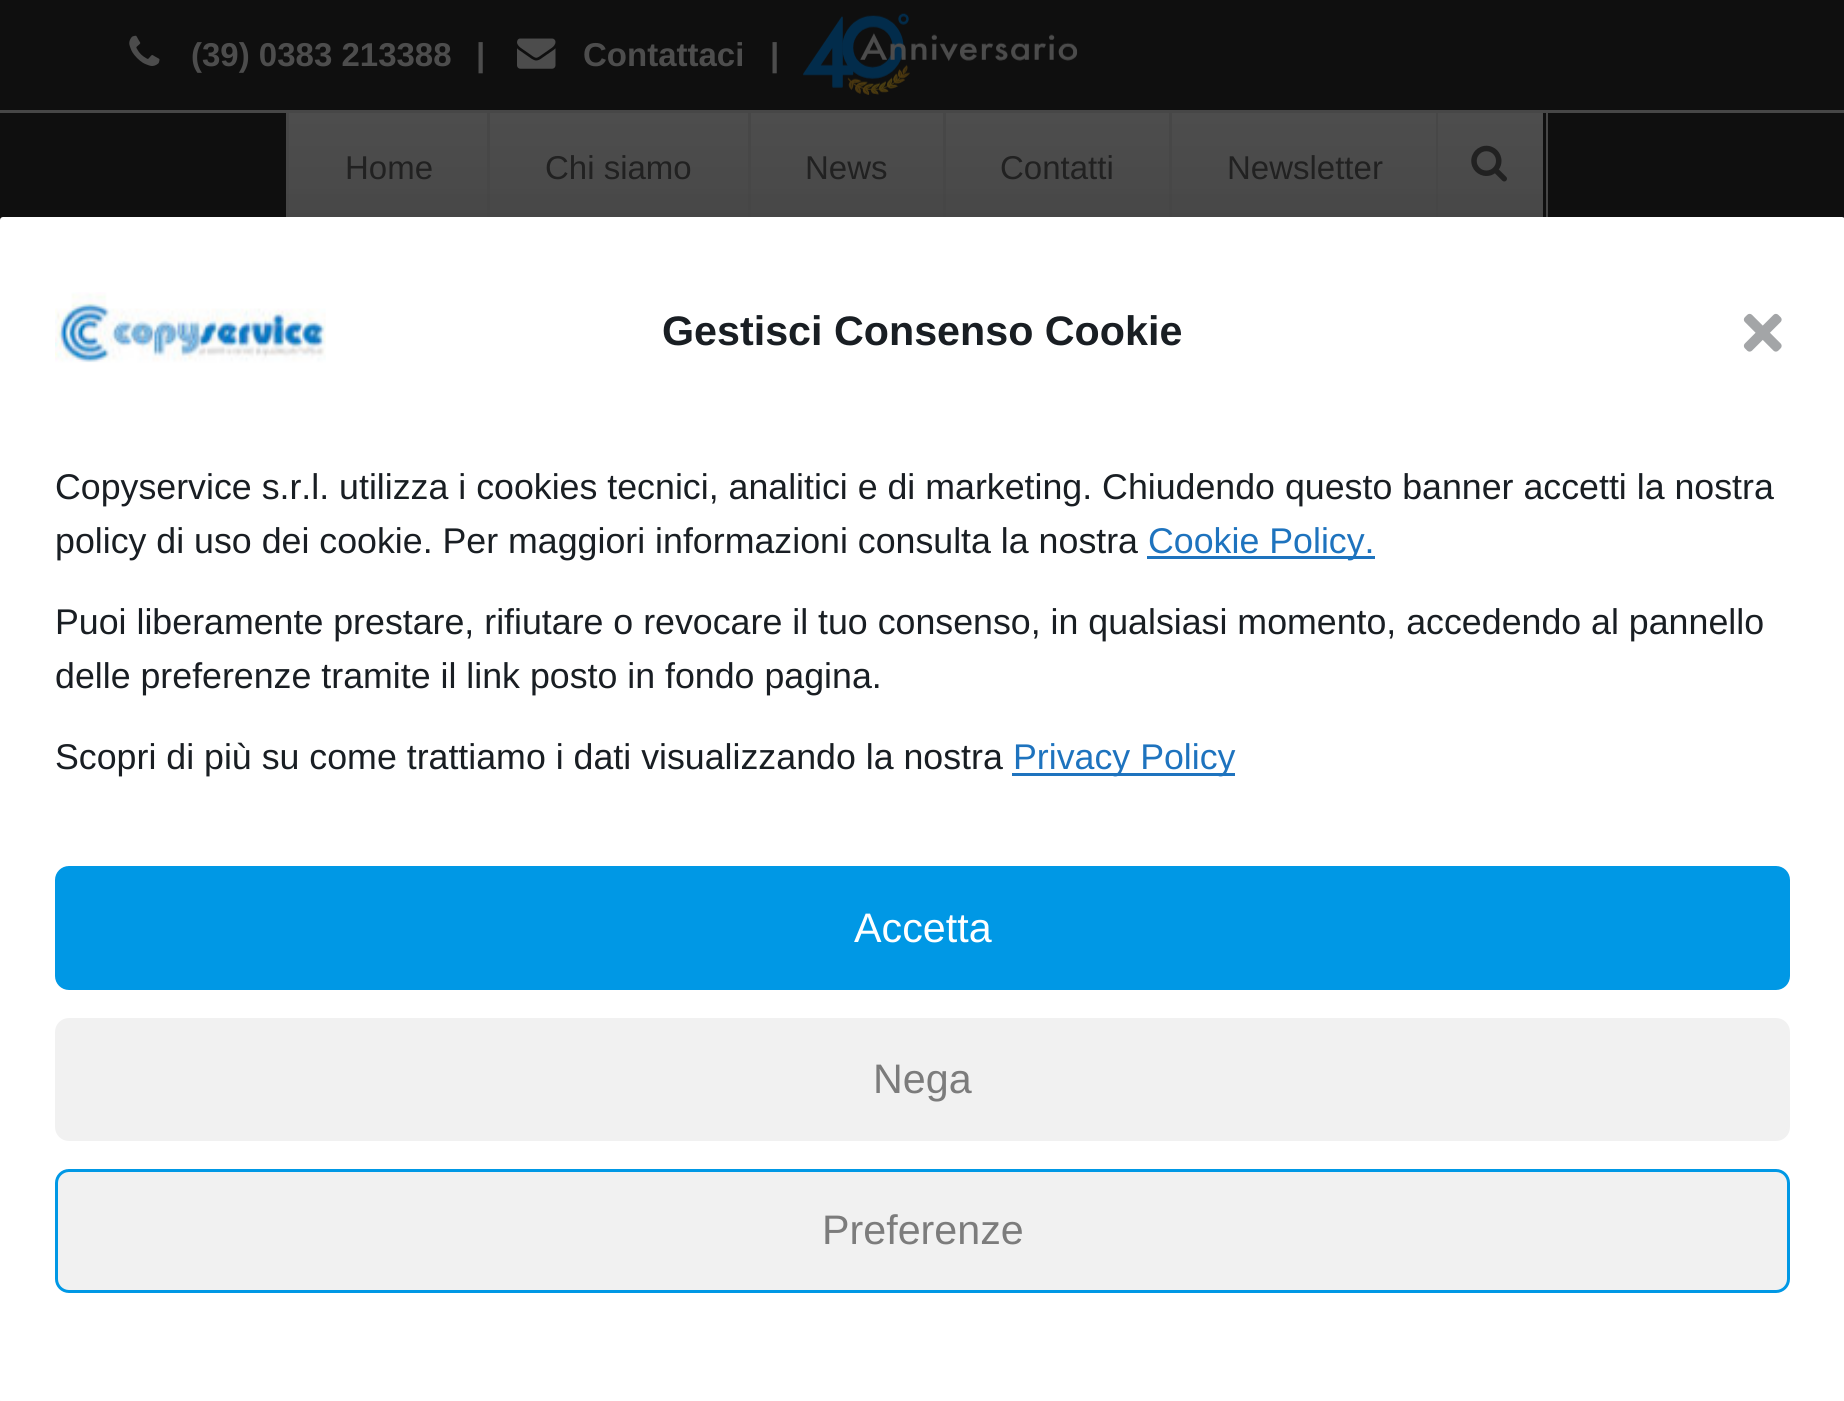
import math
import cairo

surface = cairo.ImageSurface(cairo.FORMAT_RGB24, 1844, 1401)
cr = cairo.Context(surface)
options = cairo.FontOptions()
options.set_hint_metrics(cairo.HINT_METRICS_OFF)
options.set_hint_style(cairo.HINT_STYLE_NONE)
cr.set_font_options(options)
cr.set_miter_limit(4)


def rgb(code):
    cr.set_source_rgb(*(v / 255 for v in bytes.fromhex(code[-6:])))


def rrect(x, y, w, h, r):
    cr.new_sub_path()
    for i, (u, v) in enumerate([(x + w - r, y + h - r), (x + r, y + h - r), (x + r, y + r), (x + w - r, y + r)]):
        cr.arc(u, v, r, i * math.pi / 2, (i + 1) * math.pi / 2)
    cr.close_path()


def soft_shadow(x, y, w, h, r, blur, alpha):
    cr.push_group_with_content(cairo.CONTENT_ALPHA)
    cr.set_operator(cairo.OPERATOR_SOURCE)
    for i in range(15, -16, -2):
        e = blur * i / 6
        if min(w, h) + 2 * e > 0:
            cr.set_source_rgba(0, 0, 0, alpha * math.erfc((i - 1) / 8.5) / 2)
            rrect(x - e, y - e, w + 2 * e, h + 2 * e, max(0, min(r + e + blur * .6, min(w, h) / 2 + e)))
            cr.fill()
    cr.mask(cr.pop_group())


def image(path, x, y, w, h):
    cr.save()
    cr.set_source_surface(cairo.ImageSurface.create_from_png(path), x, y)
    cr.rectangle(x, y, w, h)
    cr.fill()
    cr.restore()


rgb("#ffffff")
cr.paint()
rgb("#0f0f0f")
cr.rectangle(0, 0, 1844, 220)
cr.fill()
rgb("#474747")
cr.rectangle(0, 110, 1844, 3)
cr.fill()
image("img/1.png", 129, 35, 31, 31)
image("img/2.png", 517, 38, 39, 31)
image("img/3.png", 803, 13, 275, 82)
gradient = cairo.LinearGradient(388, 113, 388, 223)
gradient.add_color_stop_rgba(0, 0.302, 0.302, 0.302, 1)
gradient.add_color_stop_rgba(1, 0.282, 0.282, 0.282, 1)
cr.set_source(gradient)
cr.rectangle(289, 113, 198, 104)
cr.fill()
rgb("#474747")
cr.rectangle(286, 113, 3, 110)
cr.fill()
gradient = cairo.LinearGradient(619, 113, 619, 223)
gradient.add_color_stop_rgba(0, 0.302, 0.302, 0.302, 1)
gradient.add_color_stop_rgba(1, 0.282, 0.282, 0.282, 1)
cr.set_source(gradient)
cr.rectangle(490, 113, 258, 104)
cr.fill()
rgb("#474747")
cr.rectangle(487, 113, 3, 110)
cr.fill()
gradient = cairo.LinearGradient(847, 113, 847, 223)
gradient.add_color_stop_rgba(0, 0.302, 0.302, 0.302, 1)
gradient.add_color_stop_rgba(1, 0.282, 0.282, 0.282, 1)
cr.set_source(gradient)
cr.rectangle(751, 113, 192, 104)
cr.fill()
rgb("#474747")
cr.rectangle(748, 113, 3, 110)
cr.fill()
gradient = cairo.LinearGradient(1057, 113, 1057, 223)
gradient.add_color_stop_rgba(0, 0.302, 0.302, 0.302, 1)
gradient.add_color_stop_rgba(1, 0.282, 0.282, 0.282, 1)
cr.set_source(gradient)
cr.rectangle(946, 113, 223, 104)
cr.fill()
rgb("#474747")
cr.rectangle(943, 113, 3, 110)
cr.fill()
gradient = cairo.LinearGradient(1305, 113, 1305, 223)
gradient.add_color_stop_rgba(0, 0.302, 0.302, 0.302, 1)
gradient.add_color_stop_rgba(1, 0.282, 0.282, 0.282, 1)
cr.set_source(gradient)
cr.rectangle(1172, 113, 264, 104)
cr.fill()
for x, y, w, h, color in [
    (1169, 113, 3, 110, "#474747"),
    (1546, 113, 2, 110, "#474747"),
    (1436, 113, 2, 110, "#474747"),
]:
    rgb(color)
    cr.rectangle(x, y, w, h)
    cr.fill()
gradient = cairo.LinearGradient(1491, 113, 1491, 223)
gradient.add_color_stop_rgba(0, 0.302, 0.302, 0.302, 1)
gradient.add_color_stop_rgba(1, 0.282, 0.282, 0.282, 1)
cr.set_source(gradient)
cr.rectangle(1438, 113, 105, 104)
cr.fill()
image("img/4.png", 1471, 145, 36, 37)
rgb("#000000")
soft_shadow(0, 245, 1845, 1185, 3, 27.5, 0.19)
rgb("#ffffff")
rrect(0, 217, 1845, 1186, 3)
cr.fill()
image("img/5.png", 55, 292, 271, 71)
image("img/6.png", 1743, 313, 39, 39)
rgb("#1e73be")
cr.rectangle(1147, 556, 228, 3)
cr.fill()
cr.rectangle(1012, 773, 223, 3)
cr.fill()
rgb("#0098e5")
rrect(56.5, 867.5, 1732, 121, 12.5)
cr.fill_preserve()
cr.set_line_width(3)
cr.stroke()
rgb("#f1f1f1")
rrect(56.5, 1019.5, 1732, 120, 12.5)
cr.fill_preserve()
cr.stroke()
rrect(56.5, 1170.5, 1732, 121, 12.5)
cr.fill_preserve()
rgb("#0098e5")
cr.stroke()
cr.select_font_face("Liberation Sans", cairo.FONT_SLANT_NORMAL, cairo.FONT_WEIGHT_BOLD)
cr.set_font_size(33)
rgb("#4d4d4d")
for x, y, s in [
    (191, 66, "(39) 0383 213388"),
    (476, 66, "|"),
    (583, 66, "Contattaci"),
    (770, 66, "|"),
]:
    cr.move_to(x, y)
    cr.show_text(s)
cr.select_font_face("Liberation Sans")
rgb("#212121")
for x, y, s in [
    (345, 179, "Home"),
    (545, 179, "Chi siamo"),
    (805, 179, "News"),
    (1000, 179, "Contatti"),
    (1227, 179, "Newsletter"),
]:
    cr.move_to(x, y)
    cr.show_text(s)
cr.select_font_face("Liberation Sans", cairo.FONT_SLANT_NORMAL, cairo.FONT_WEIGHT_BOLD)
cr.set_font_size(41.25)
rgb("#191e23")
cr.move_to(662, 345)
cr.show_text("Gestisci Consenso Cookie")
cr.select_font_face("Liberation Sans")
cr.set_font_size(35.75)
cr.move_to(55, 499)
cr.show_text("Copyservice s.r.l. utilizza i cookies tecnici, analitici e di marketing. Chiudendo questo banner accetti la nostra")
cr.move_to(55, 553)
cr.show_text("policy di uso dei cookie. Per maggiori informazioni consulta la nostra")
rgb("#1e73be")
cr.move_to(1148, 553)
cr.show_text("Cookie Policy.")
rgb("#191e23")
for x, y, s in [
    (55, 634, "Puoi liberamente prestare, rifiutare o revocare il tuo consenso, in qualsiasi momento, accedendo al pannello"),
    (55, 688, "delle preferenze tramite il link posto in fondo pagina."),
    (55, 769, "Scopri di più su come trattiamo i dati visualizzando la nostra"),
]:
    cr.move_to(x, y)
    cr.show_text(s)
rgb("#1e73be")
cr.move_to(1013, 769)
cr.show_text("Privacy Policy")
cr.set_font_size(41.25)
rgb("#ffffff")
cr.move_to(854, 942)
cr.show_text("Accetta")
rgb("#7c7c7c")
cr.move_to(873, 1093)
cr.show_text("Nega")
cr.move_to(822, 1244)
cr.show_text("Preferenze")
surface.write_to_png("page.png")
